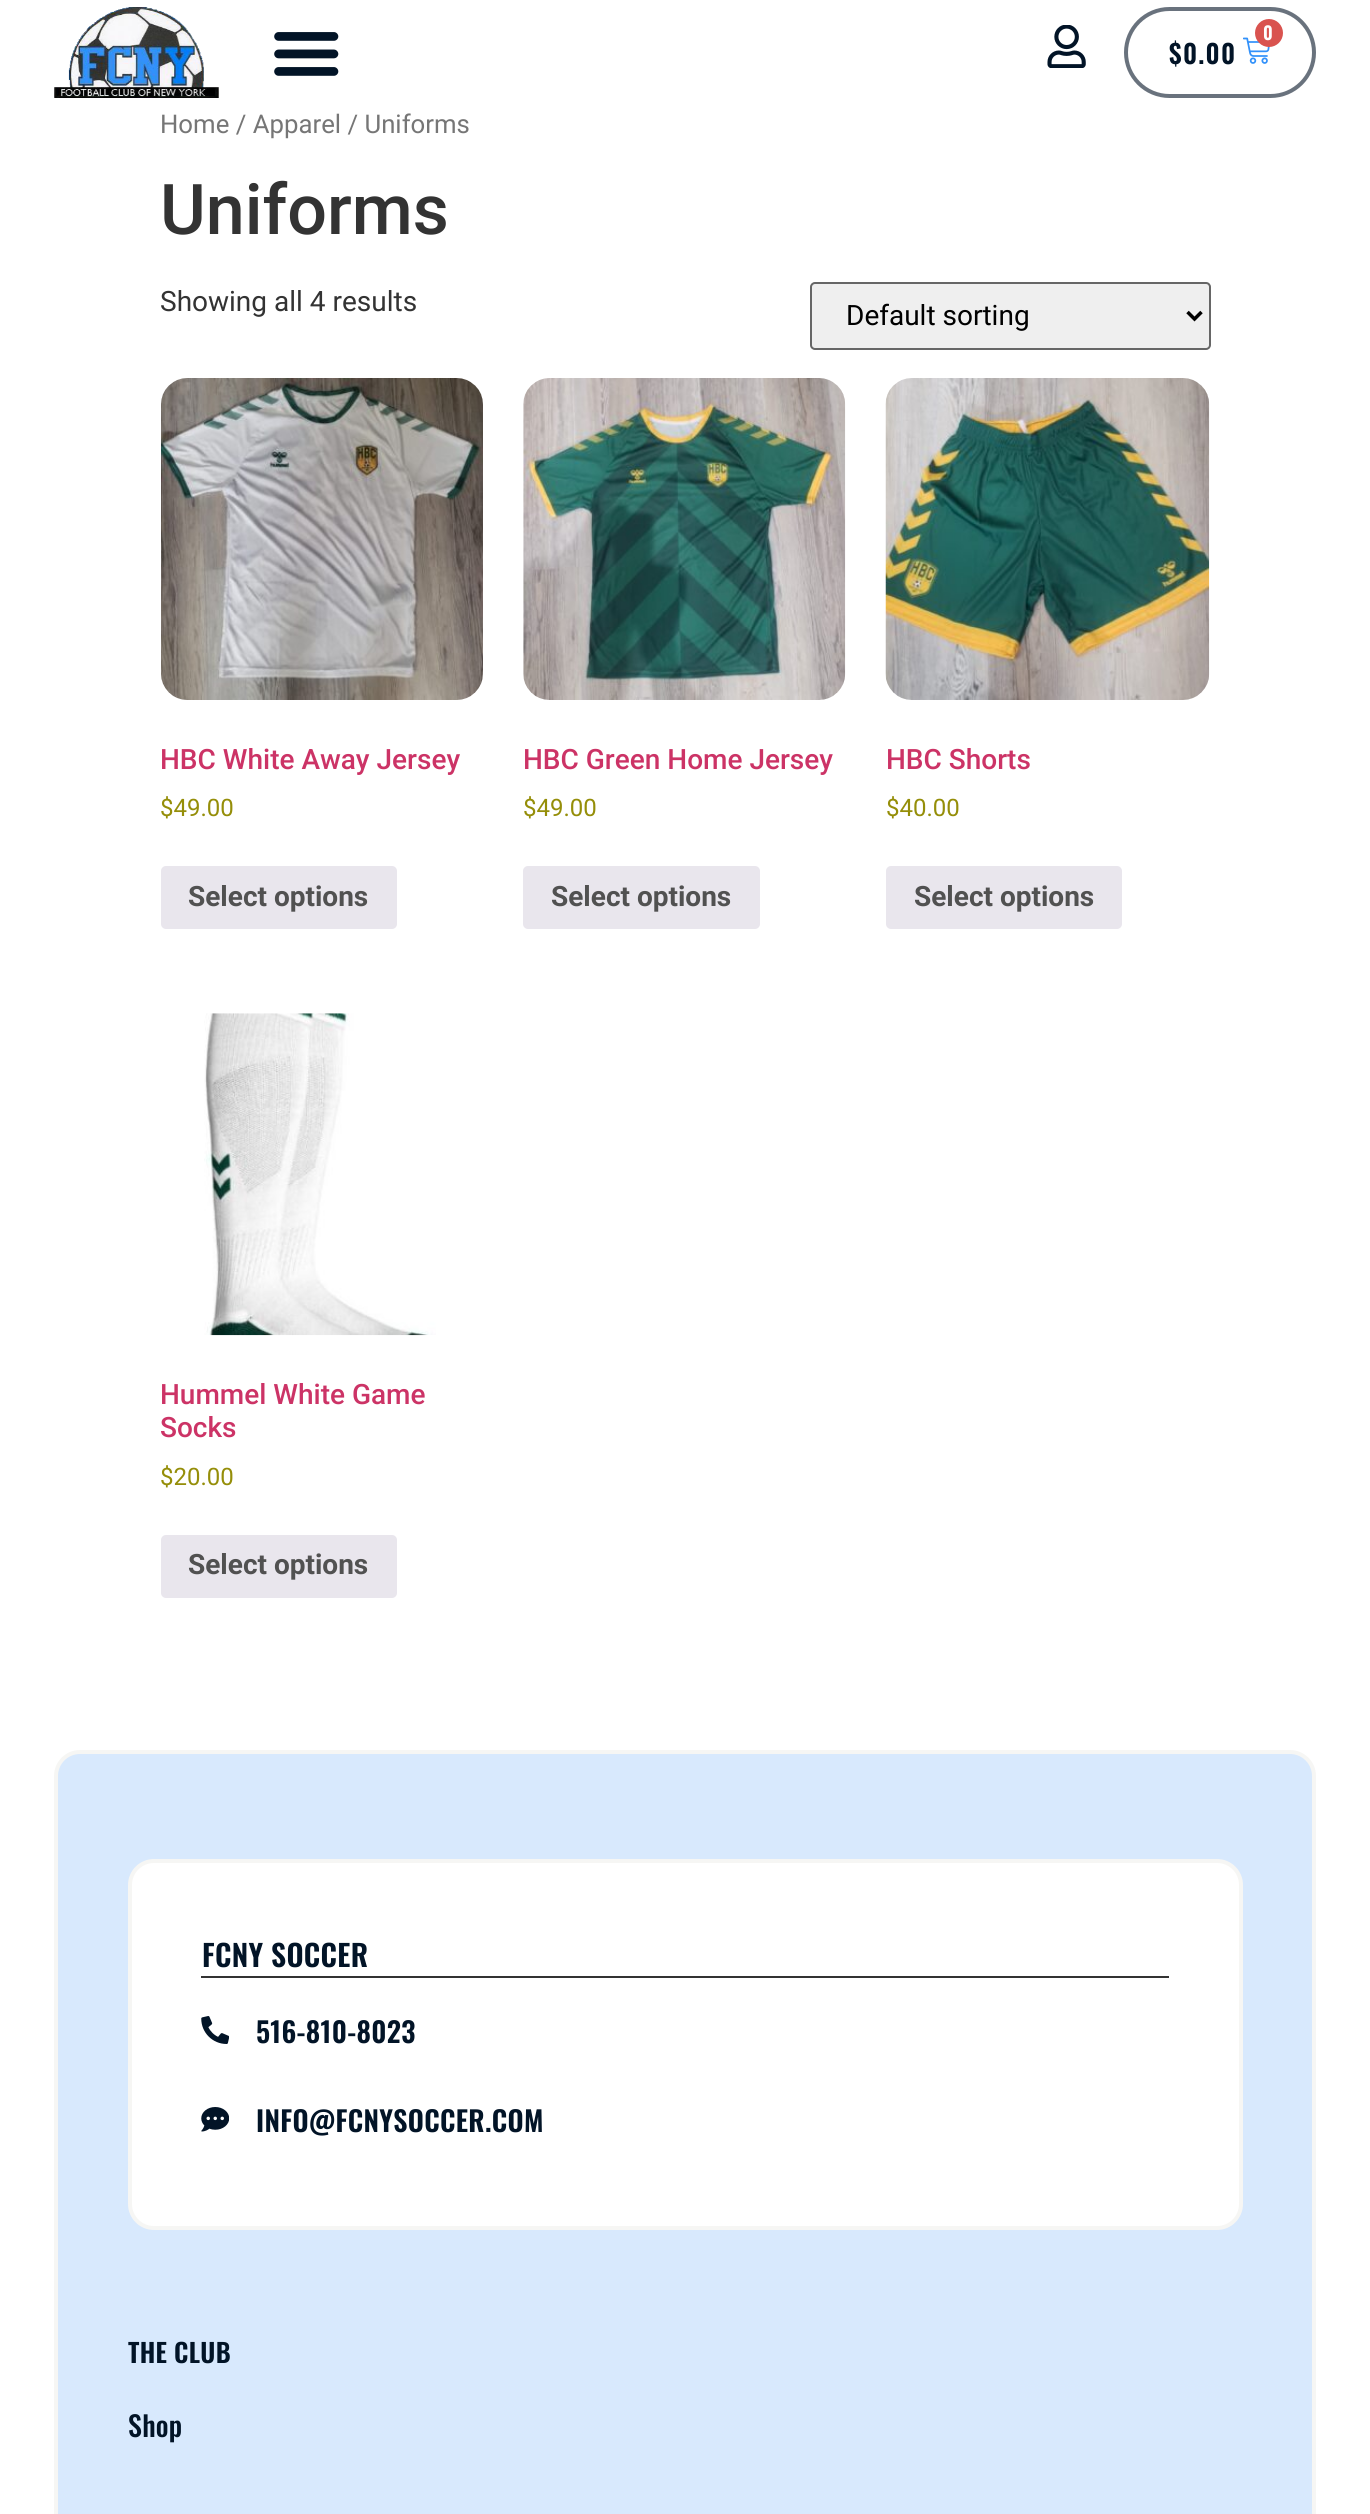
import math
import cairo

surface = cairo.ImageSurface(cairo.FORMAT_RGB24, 1370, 2514)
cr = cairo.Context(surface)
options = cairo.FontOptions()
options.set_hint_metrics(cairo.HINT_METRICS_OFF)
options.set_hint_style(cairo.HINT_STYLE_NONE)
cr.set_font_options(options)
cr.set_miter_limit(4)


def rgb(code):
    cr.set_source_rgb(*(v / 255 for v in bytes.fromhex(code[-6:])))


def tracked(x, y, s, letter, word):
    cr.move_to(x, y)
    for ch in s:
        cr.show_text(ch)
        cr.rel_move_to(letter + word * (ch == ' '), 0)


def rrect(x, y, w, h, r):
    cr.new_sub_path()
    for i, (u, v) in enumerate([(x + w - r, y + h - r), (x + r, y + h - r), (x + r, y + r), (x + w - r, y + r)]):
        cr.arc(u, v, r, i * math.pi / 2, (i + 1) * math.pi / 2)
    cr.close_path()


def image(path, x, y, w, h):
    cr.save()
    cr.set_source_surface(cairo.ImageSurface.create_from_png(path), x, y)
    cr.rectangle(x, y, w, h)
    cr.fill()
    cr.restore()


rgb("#ffffff")
cr.paint()
image("img/1.png", 54, 7, 165, 91)
image("img/2.png", 274, 32, 65, 44)
image("img/3.png", 1047, 25, 39, 43)
rrect(1126, 9, 188, 87, 43.5)
rgb("#69727d")
cr.set_line_width(4)
cr.stroke()
image("img/4.png", 1243, 37, 27, 27)
rgb("#d9534f")
cr.arc(1269, 33, 14, 0, 2 * math.pi)
cr.fill()
rgb("#efefef")
rrect(811, 283, 399, 66, 4)
cr.fill_preserve()
rgb("#666666")
cr.set_line_width(2)
cr.stroke()
cr.new_path()
cr.move_to(1187.5, 312)
cr.line_to(1194.5, 319)
cr.line_to(1201.5, 312)
rgb("#000000")
cr.set_line_width(3.5)
cr.stroke()
image("img/5.png", 161, 378, 322, 322)
rgb("#e9e6ed")
rrect(161, 866, 236, 63, 5)
cr.fill()
image("img/6.png", 523, 378, 323, 322)
rrect(523, 866, 237, 63, 5)
cr.fill()
image("img/7.png", 885, 378, 325, 322)
rrect(886, 866, 236, 63, 5)
cr.fill()
image("img/8.png", 204, 1013, 232, 323)
rrect(161, 1535, 236, 63, 5)
cr.fill()
rgb("#d8e9fd")
rrect(56, 1752, 1258, 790, 24)
cr.fill_preserve()
rgb("#f6f6f4")
cr.set_line_width(4)
cr.stroke()
rgb("#ffffff")
rrect(130, 1861, 1111, 367, 24)
cr.fill_preserve()
rgb("#f6f6f4")
cr.stroke()
rgb("#333333")
cr.rectangle(201, 1976, 968, 2)
cr.fill()
image("img/9.png", 201, 2016, 28, 28)
image("img/10.png", 201, 2107, 28, 25)
cr.select_font_face("Oswald SemiBold")
cr.set_font_size(18)
rgb("#ffffff")
tracked(1263, 40, "0", 1.25, 0)
cr.set_font_size(26)
rgb("#021427")
tracked(1169, 64, "$0.00", 1.25, 0)
cr.select_font_face("Roboto")
cr.set_font_size(25.75)
rgb("#767676")
cr.move_to(160, 133)
cr.show_text("Home / Apparel / Uniforms")
cr.select_font_face("Roboto Medium")
cr.set_font_size(70)
rgb("#333333")
cr.move_to(160, 234)
cr.show_text("Uniforms")
cr.select_font_face("Roboto")
cr.set_font_size(28)
cr.move_to(160, 311)
cr.show_text("Showing all 4 results")
rgb("#000000")
cr.move_to(846, 325)
cr.show_text("Default sorting")
cr.select_font_face("Roboto Medium")
rgb("#cc3366")
cr.move_to(160, 769)
cr.show_text("HBC White Away Jersey")
cr.select_font_face("Roboto")
cr.set_font_size(24)
rgb("#958e09")
cr.move_to(160, 816)
cr.show_text("$49.00")
cr.select_font_face("Roboto", cairo.FONT_SLANT_NORMAL, cairo.FONT_WEIGHT_BOLD)
cr.set_font_size(28)
rgb("#515151")
cr.move_to(188, 906)
cr.show_text("Select options")
cr.select_font_face("Roboto Medium")
rgb("#cc3366")
cr.move_to(523, 769)
cr.show_text("HBC Green Home Jersey")
cr.select_font_face("Roboto")
cr.set_font_size(24)
rgb("#958e09")
cr.move_to(523, 816)
cr.show_text("$49.00")
cr.select_font_face("Roboto", cairo.FONT_SLANT_NORMAL, cairo.FONT_WEIGHT_BOLD)
cr.set_font_size(28)
rgb("#515151")
cr.move_to(551, 906)
cr.show_text("Select options")
cr.select_font_face("Roboto Medium")
rgb("#cc3366")
cr.move_to(886, 769)
cr.show_text("HBC Shorts")
cr.select_font_face("Roboto")
cr.set_font_size(24)
rgb("#958e09")
cr.move_to(886, 816)
cr.show_text("$40.00")
cr.select_font_face("Roboto", cairo.FONT_SLANT_NORMAL, cairo.FONT_WEIGHT_BOLD)
cr.set_font_size(28)
rgb("#515151")
cr.move_to(914, 906)
cr.show_text("Select options")
cr.select_font_face("Roboto Medium")
rgb("#cc3366")
cr.move_to(160, 1404)
cr.show_text("Hummel White Game")
cr.move_to(160, 1437)
cr.show_text("Socks")
cr.select_font_face("Roboto")
cr.set_font_size(24)
rgb("#958e09")
cr.move_to(160, 1485)
cr.show_text("$20.00")
cr.select_font_face("Roboto", cairo.FONT_SLANT_NORMAL, cairo.FONT_WEIGHT_BOLD)
cr.set_font_size(28)
rgb("#515151")
cr.move_to(188, 1574)
cr.show_text("Select options")
cr.select_font_face("Oswald SemiBold")
cr.set_font_size(29.75)
rgb("#021427")
tracked(202, 1967, "FCNY SOCCER", 0.3, 0)
cr.set_font_size(28)
tracked(256, 2043, "516-810-8023", 0.3, 0)
tracked(256, 2132, "INFO@FCNYSOCCER.COM", 0.3, 0)
cr.set_font_size(26)
tracked(128, 2363, "THE CLUB", 0.3, 0)
cr.select_font_face("Oswald Medium")
cr.set_font_size(28)
tracked(128, 2437, "Shop", 0.3, 0)
surface.write_to_png("page.png")
